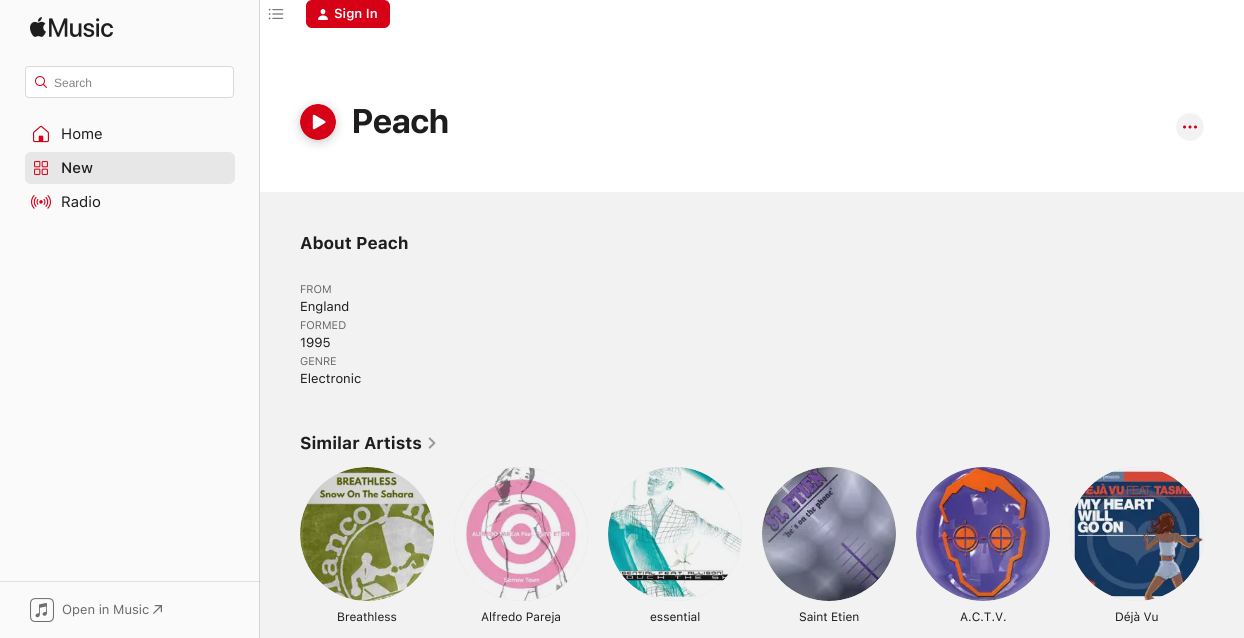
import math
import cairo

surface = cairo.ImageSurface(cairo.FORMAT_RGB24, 1244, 638)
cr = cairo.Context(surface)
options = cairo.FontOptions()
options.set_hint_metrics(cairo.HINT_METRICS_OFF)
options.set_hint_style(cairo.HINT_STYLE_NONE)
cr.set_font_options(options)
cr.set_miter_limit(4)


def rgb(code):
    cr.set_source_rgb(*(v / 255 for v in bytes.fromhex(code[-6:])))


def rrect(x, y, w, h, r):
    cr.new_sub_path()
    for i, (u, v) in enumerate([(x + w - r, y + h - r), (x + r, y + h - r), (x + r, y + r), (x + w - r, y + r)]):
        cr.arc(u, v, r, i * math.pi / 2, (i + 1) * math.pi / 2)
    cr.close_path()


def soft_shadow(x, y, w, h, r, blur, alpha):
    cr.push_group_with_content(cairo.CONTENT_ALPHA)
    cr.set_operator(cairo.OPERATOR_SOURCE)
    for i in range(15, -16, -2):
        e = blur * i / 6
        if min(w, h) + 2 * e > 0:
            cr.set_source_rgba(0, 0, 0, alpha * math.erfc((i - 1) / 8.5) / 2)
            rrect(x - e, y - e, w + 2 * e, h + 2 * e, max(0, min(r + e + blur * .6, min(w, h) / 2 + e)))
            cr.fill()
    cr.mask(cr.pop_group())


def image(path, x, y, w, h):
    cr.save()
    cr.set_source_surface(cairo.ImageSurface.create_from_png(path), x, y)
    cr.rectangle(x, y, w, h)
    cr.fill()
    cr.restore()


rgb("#ffffff")
cr.paint()
image("img/1.png", 268, 8, 16, 12)
rgb("#d60017")
rrect(306, 0, 84, 28, 6)
cr.fill()
image("img/2.png", 318, 9, 10, 11)
for x, y, w, h, color in [
    (0, 0, 259, 638, "#fafafa"),
    (0, 581, 260, 1, "#e1e1e1"),
    (259, 0, 1, 638, "#d5d5d5"),
    (259, 581, 1, 1, "#c0c0c0"),
]:
    rgb(color)
    cr.rectangle(x, y, w, h)
    cr.fill()
image("img/3.png", 30, 17, 83, 20)
rgb("#ffffff")
rrect(25.5, 66.5, 208, 31, 3.5)
cr.fill_preserve()
rgb("#d9d9d9")
cr.set_line_width(1)
cr.stroke()
image("img/4.png", 35, 76, 12, 12)
image("img/5.png", 33, 125, 16, 18)
rgb("#e7e7e8")
rrect(25, 152, 210, 32, 6)
cr.fill()
image("img/6.png", 34, 161, 14, 14)
image("img/7.png", 31, 195, 20, 14)
image("img/8.png", 30, 598, 24, 24)
image("img/9.png", 153, 605, 9, 9)
rgb("#000000")
soft_shadow(300, 106, 36, 36, 18, 5, 0.2)
image("img/10.png", 300, 104, 36, 36)
image("img/11.png", 1176, 113, 28, 28)
rgb("#f2f2f2")
cr.rectangle(260, 192, 984, 446)
cr.fill()
image("img/12.png", 428, 437, 8, 12)
cr.arc(367, 534, 66.5, 0, 2 * math.pi)
cr.set_source_rgba(0.502, 0.502, 0.502, 0.1)
cr.stroke()
image("img/13.png", 300, 467, 134, 134)
cr.new_path()
cr.move_to(367, 467)
cr.curve_to(404, 467, 434, 497, 434, 534)
cr.curve_to(434, 571, 404, 601, 367, 601)
cr.curve_to(330, 601, 300, 571, 300, 534)
cr.curve_to(300, 497, 330, 467, 367, 467)
cr.close_path()
cr.fill()
cr.arc(521, 534, 66.5, 0, 2 * math.pi)
cr.stroke()
image("img/14.png", 454, 467, 134, 134)
cr.new_path()
cr.move_to(521, 467)
cr.curve_to(558, 467, 588, 497, 588, 534)
cr.curve_to(588, 571, 558, 601, 521, 601)
cr.curve_to(484, 601, 454, 571, 454, 534)
cr.curve_to(454, 497, 484, 467, 521, 467)
cr.close_path()
cr.fill()
cr.arc(675, 534, 66.5, 0, 2 * math.pi)
cr.stroke()
image("img/15.png", 608, 467, 134, 134)
cr.new_path()
cr.move_to(675, 467)
cr.curve_to(712, 467, 742, 497, 742, 534)
cr.curve_to(742, 571, 712, 601, 675, 601)
cr.curve_to(638, 601, 608, 571, 608, 534)
cr.curve_to(608, 497, 638, 467, 675, 467)
cr.close_path()
cr.fill()
cr.arc(829, 534, 66.5, 0, 2 * math.pi)
cr.stroke()
image("img/16.png", 762, 467, 134, 134)
cr.new_path()
cr.move_to(829, 467)
cr.curve_to(866, 467, 896, 497, 896, 534)
cr.curve_to(896, 571, 866, 601, 829, 601)
cr.curve_to(792, 601, 762, 571, 762, 534)
cr.curve_to(762, 497, 792, 467, 829, 467)
cr.close_path()
cr.fill()
cr.arc(983, 534, 66.5, 0, 2 * math.pi)
cr.stroke()
image("img/17.png", 916, 467, 134, 134)
cr.new_path()
cr.move_to(983, 467)
cr.curve_to(1020, 467, 1050, 497, 1050, 534)
cr.curve_to(1050, 571, 1020, 601, 983, 601)
cr.curve_to(946, 601, 916, 571, 916, 534)
cr.curve_to(916, 497, 946, 467, 983, 467)
cr.close_path()
cr.fill()
cr.arc(1137, 534, 66.5, 0, 2 * math.pi)
cr.stroke()
image("img/18.png", 1070, 467, 134, 134)
cr.new_path()
cr.move_to(1137, 467)
cr.curve_to(1174, 467, 1204, 497, 1204, 534)
cr.curve_to(1204, 571, 1174, 601, 1137, 601)
cr.curve_to(1100, 601, 1070, 571, 1070, 534)
cr.curve_to(1070, 497, 1100, 467, 1137, 467)
cr.close_path()
cr.fill()
cr.select_font_face("SF SemiBold")
cr.set_font_size(13)
rgb("#ffffff")
cr.move_to(334, 18)
cr.show_text("Sign In")
cr.select_font_face("Liberation Sans")
cr.set_font_size(12)
rgb("#858585")
cr.move_to(54, 87)
cr.show_text("Search")
cr.select_font_face("SF")
cr.set_font_size(15)
rgb("#1d1d1d")
cr.move_to(61, 139)
cr.show_text("Home")
cr.select_font_face("SF Medium")
cr.move_to(61, 173)
cr.show_text("New")
cr.select_font_face("SF")
cr.move_to(61, 207)
cr.show_text("Radio")
cr.set_font_size(13)
rgb("#6a6a6a")
cr.move_to(62, 614)
cr.show_text("Open in Music")
cr.select_font_face("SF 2", cairo.FONT_SLANT_NORMAL, cairo.FONT_WEIGHT_BOLD)
cr.set_font_size(34)
rgb("#1d1d1d")
cr.move_to(352, 133)
cr.show_text("Peach")
cr.select_font_face("SF", cairo.FONT_SLANT_NORMAL, cairo.FONT_WEIGHT_BOLD)
cr.set_font_size(17)
cr.move_to(300, 249)
cr.show_text("About Peach")
cr.select_font_face("SF")
cr.set_font_size(11)
rgb("#6a6a6a")
cr.move_to(300, 293)
cr.show_text("FROM")
cr.set_font_size(13)
rgb("#1d1d1d")
cr.move_to(300, 311)
cr.show_text("England")
cr.set_font_size(11)
rgb("#6a6a6a")
cr.move_to(300, 329)
cr.show_text("FORMED")
cr.set_font_size(13)
rgb("#1d1d1d")
cr.move_to(300, 347)
cr.show_text("1995")
cr.set_font_size(11)
rgb("#6a6a6a")
cr.move_to(300, 365)
cr.show_text("GENRE")
cr.set_font_size(13)
rgb("#1d1d1d")
cr.move_to(300, 383)
cr.show_text("Electronic")
cr.select_font_face("SF", cairo.FONT_SLANT_NORMAL, cairo.FONT_WEIGHT_BOLD)
cr.set_font_size(17)
cr.move_to(300, 449)
cr.show_text("Similar Artists")
cr.select_font_face("SF")
cr.set_font_size(12)
for x, y, s in [
    (337, 621, "Breathless"),
    (481, 621, "Alfredo Pareja"),
    (650, 621, "essential"),
    (799, 621, "Saint Etien"),
    (960, 621, "A.C.T.V."),
    (1115, 621, "Déjà Vu"),
]:
    cr.move_to(x, y)
    cr.show_text(s)
surface.write_to_png("page.png")
